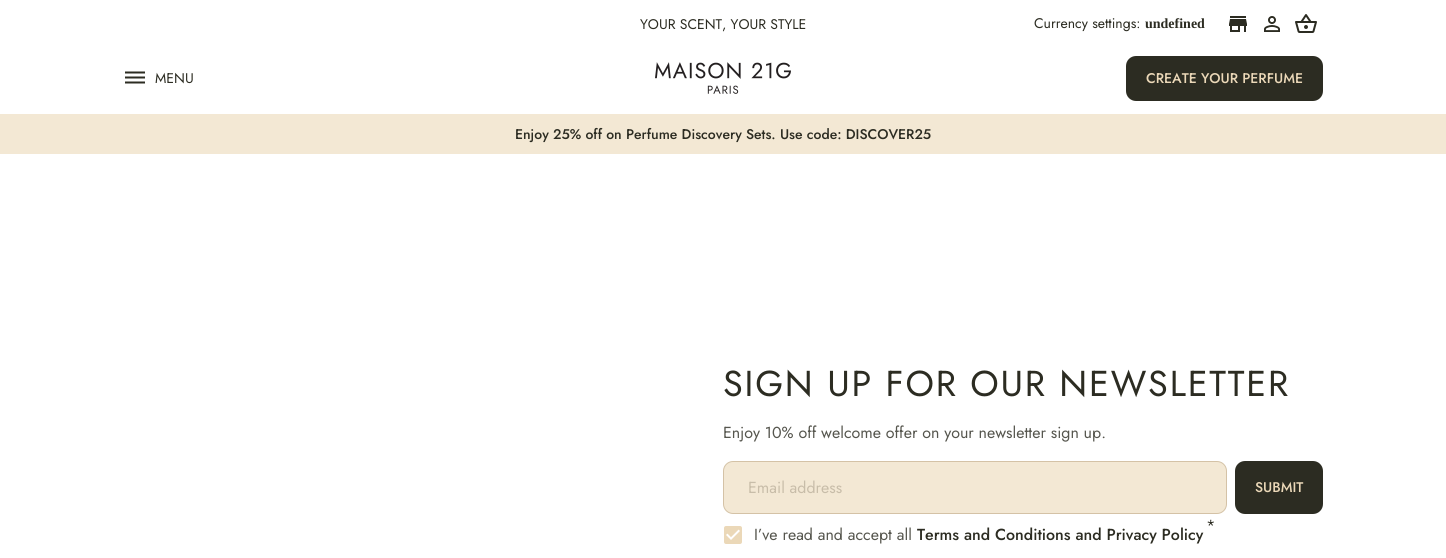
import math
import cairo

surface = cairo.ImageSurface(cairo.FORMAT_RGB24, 1446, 558)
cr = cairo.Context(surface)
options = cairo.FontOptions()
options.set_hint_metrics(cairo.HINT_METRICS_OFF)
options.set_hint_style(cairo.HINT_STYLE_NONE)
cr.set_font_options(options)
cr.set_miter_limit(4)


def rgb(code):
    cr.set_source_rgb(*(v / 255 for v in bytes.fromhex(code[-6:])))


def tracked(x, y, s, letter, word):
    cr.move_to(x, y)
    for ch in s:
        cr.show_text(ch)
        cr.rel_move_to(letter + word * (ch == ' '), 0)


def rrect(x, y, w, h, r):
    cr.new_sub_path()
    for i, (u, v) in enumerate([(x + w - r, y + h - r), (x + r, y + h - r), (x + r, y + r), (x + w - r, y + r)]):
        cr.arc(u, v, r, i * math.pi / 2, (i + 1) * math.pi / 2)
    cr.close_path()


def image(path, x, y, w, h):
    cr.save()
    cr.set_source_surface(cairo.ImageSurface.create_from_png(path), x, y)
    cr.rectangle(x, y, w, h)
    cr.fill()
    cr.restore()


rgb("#ffffff")
cr.paint()
image("img/1.png", 1229, 16, 18, 16)
image("img/2.png", 1264, 16, 16, 16)
image("img/3.png", 1295, 14, 22, 19)
image("img/4.png", 125, 71, 20, 13)
image("img/5.png", 655, 62, 136, 32)
rgb("#2c2c22")
rrect(1126, 56, 197, 45, 10)
cr.fill()
rgb("#f3e8d4")
cr.rectangle(0, 114, 1446, 40)
cr.fill()
rrect(723.5, 461.5, 503, 52, 9.5)
cr.fill_preserve()
rgb("#d4c2a6")
cr.set_line_width(1)
cr.stroke()
rgb("#2c2c22")
rrect(1235, 461, 88, 53, 10)
cr.fill()
image("img/6.png", 724, 526, 18, 18)
cr.select_font_face("Jost")
cr.set_font_size(14)
cr.move_to(640, 29)
cr.show_text("YOUR SCENT, YOUR STYLE")
cr.move_to(1034, 28)
cr.show_text("Currency settings:")
cr.select_font_face("Liberation Serif", cairo.FONT_SLANT_NORMAL, cairo.FONT_WEIGHT_BOLD)
cr.move_to(1145, 28)
cr.show_text("undefined")
cr.select_font_face("Jost")
cr.move_to(155, 83)
cr.show_text("MENU")
cr.select_font_face("Jost Medium")
rgb("#ebd8b8")
cr.move_to(1146, 83)
cr.show_text("CREATE YOUR PERFUME")
rgb("#2c2c22")
cr.move_to(515, 139)
cr.show_text("Enjoy 25% off on Perfume Discovery Sets. Use code: DISCOVER25")
cr.select_font_face("Jost")
cr.set_font_size(36)
tracked(723, 396, "SIGN UP FOR OUR NEWSLETTER", 1.8, 0)
cr.set_font_size(16)
rgb("#56564e")
cr.move_to(723, 438)
cr.show_text("Enjoy 10% off welcome offer on your newsletter sign up.")
rgb("#c8bda9")
cr.move_to(748, 493)
cr.show_text("Email address")
cr.select_font_face("Jost Medium")
cr.set_font_size(14)
rgb("#ebd8b8")
cr.move_to(1255, 492)
cr.show_text("SUBMIT")
cr.select_font_face("Jost")
cr.set_font_size(16)
rgb("#2c2c22")
cr.move_to(1206, 531)
cr.show_text("*")
rgb("#56564e")
cr.move_to(754, 540)
cr.show_text("I’ve read and accept all")
cr.select_font_face("Jost Medium")
rgb("#2c2c22")
cr.move_to(917, 540)
cr.show_text("Terms and Conditions and Privacy Policy")
surface.write_to_png("page.png")
